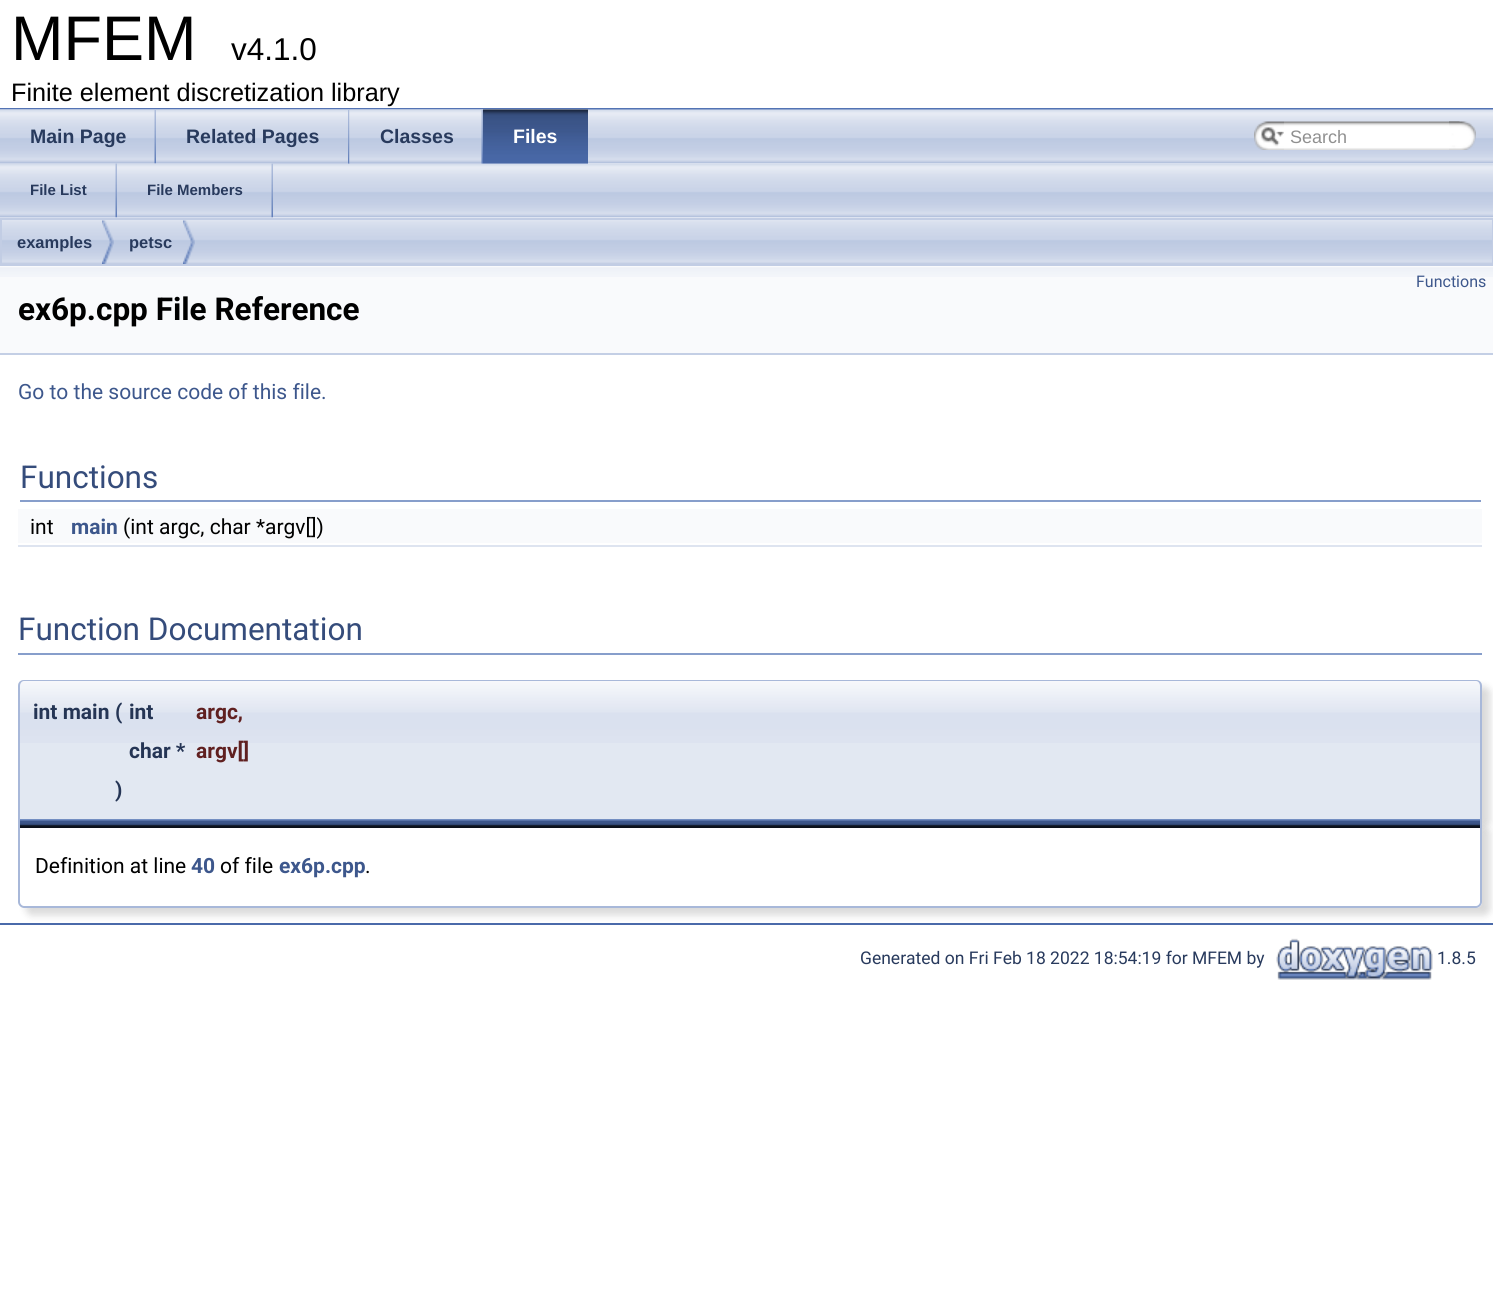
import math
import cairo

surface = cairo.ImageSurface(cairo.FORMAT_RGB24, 1493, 1315)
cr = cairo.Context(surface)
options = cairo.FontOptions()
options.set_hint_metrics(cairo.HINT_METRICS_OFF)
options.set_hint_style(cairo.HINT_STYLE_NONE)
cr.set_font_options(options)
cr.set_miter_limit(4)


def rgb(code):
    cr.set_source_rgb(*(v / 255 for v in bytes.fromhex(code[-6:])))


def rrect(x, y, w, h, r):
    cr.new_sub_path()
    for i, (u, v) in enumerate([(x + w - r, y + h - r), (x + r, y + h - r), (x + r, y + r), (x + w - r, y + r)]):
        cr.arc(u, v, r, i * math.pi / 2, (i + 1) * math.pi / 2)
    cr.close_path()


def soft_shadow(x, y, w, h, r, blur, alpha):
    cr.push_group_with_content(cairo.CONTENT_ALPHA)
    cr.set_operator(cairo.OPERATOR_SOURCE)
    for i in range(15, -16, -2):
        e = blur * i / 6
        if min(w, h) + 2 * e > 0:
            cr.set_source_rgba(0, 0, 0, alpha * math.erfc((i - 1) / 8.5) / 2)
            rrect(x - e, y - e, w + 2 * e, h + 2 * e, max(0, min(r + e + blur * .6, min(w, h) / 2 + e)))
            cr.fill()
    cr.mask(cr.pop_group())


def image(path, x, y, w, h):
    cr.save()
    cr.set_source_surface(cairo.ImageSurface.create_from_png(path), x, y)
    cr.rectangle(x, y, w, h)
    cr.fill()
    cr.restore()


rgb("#ffffff")
cr.paint()
rgb("#5373b4")
cr.rectangle(0, 108, 1493, 2)
cr.fill()
image("img/1.png", 0, 109, 1493, 55)
image("img/2.png", 0, 109, 156, 55)
image("img/3.png", 154, 110, 2, 54)
image("img/4.png", 156, 109, 194, 55)
image("img/5.png", 348, 110, 2, 54)
image("img/6.png", 349, 109, 134, 55)
image("img/3.png", 481, 110, 2, 54)
image("img/7.png", 483, 109, 105, 55)
image("img/8.png", 483, 109, 105, 55)
image("img/9.png", 1254, 121, 30, 29)
image("img/10.png", 1261, 127, 23, 19)
image("img/11.png", 1284, 121, 176, 29)
image("img/12.png", 1449, 121, 27, 29)
image("img/13.png", 0, 164, 1493, 54)
image("img/14.png", 0, 163, 117, 55)
image("img/15.png", 115, 163, 2, 55)
image("img/16.png", 117, 163, 156, 55)
image("img/15.png", 271, 163, 2, 55)
image("img/17.png", 0, 217, 1493, 47)
cr.rectangle(1, 219, 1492, 46)
rgb("#c2cde4")
cr.stroke()
image("img/18.png", 102, 220, 12, 44)
image("img/18.png", 183, 220, 12, 44)
rgb("#f9fafc")
cr.rectangle(0, 266, 1493, 87)
cr.fill()
image("img/19.png", 0, 267, 1493, 10)
for x, y, w, h, color in [
    (0, 353, 1493, 2, "#c4cfe5"),
    (20, 500, 1461, 2, "#879ecb"),
    (18, 509, 1464, 34, "#f9fafc"),
    (18, 545, 1464, 2, "#dee4f0"),
    (18, 653, 1464, 2, "#879ecb"),
]:
    rgb(color)
    cr.rectangle(x, y, w, h)
    cr.fill()
rgb("#000000")
soft_shadow(26, 687, 1464, 140, 6, 4, 0.15)
rgb("#e2e8f2")
cr.new_path()
cr.move_to(24, 680)
cr.line_to(1476, 680)
cr.curve_to(1479.5, 680, 1482, 682.5, 1482, 686)
cr.line_to(1482, 819)
cr.line_to(18, 819)
cr.line_to(18, 686)
cr.curve_to(18, 682.5, 20.5, 680, 24, 680)
cr.close_path()
cr.fill()
image("img/20.png", 18, 681, 1464, 62)
rgb("#a8b8d9")
cr.set_fill_rule(cairo.FILL_RULE_EVEN_ODD)
cr.new_path()
cr.move_to(24, 680)
cr.line_to(1476, 680)
cr.curve_to(1479, 680, 1482, 682, 1482, 686)
cr.line_to(1482, 819)
cr.line_to(18, 819)
cr.line_to(18, 686)
cr.curve_to(18, 682, 21, 680, 24, 680)
cr.close_path()
cr.move_to(24, 681)
cr.line_to(1476, 681)
cr.curve_to(1478, 681, 1480, 683, 1480, 686)
cr.line_to(1480, 819)
cr.line_to(20, 819)
cr.line_to(20, 686)
cr.curve_to(20, 683, 22, 681, 24, 681)
cr.close_path()
cr.fill()
rgb("#000000")
soft_shadow(26, 827, 1464, 88, 6, 4, 0.15)
rgb("#ffffff")
cr.new_path()
cr.move_to(18, 819)
cr.line_to(1482, 819)
cr.line_to(1482, 902)
cr.curve_to(1482, 905.5, 1479.5, 908, 1476, 908)
cr.line_to(24, 908)
cr.curve_to(20.5, 908, 18, 905.5, 18, 902)
cr.close_path()
cr.fill()
image("img/21.png", 20, 819, 1460, 9)
rgb("#a8b8d9")
cr.new_path()
cr.move_to(18, 819)
cr.line_to(1482, 819)
cr.line_to(1482, 902)
cr.curve_to(1482, 905, 1479, 908, 1476, 908)
cr.line_to(24, 908)
cr.curve_to(21, 908, 18, 905, 18, 902)
cr.close_path()
cr.move_to(20, 819)
cr.line_to(1480, 819)
cr.line_to(1480, 902)
cr.curve_to(1480, 904, 1478, 906, 1476, 906)
cr.line_to(24, 906)
cr.curve_to(22, 906, 20, 904, 20, 902)
cr.close_path()
cr.fill()
rgb("#4a6aaa")
cr.rectangle(0, 923, 1493, 2)
cr.fill()
image("img/22.png", 1276, 938, 157, 42)
cr.select_font_face("Liberation Sans")
cr.set_font_size(63)
rgb("#000000")
cr.move_to(11, 60)
cr.show_text("MFEM")
cr.set_font_size(31.5)
cr.move_to(231, 60)
cr.show_text("v4.1.0")
cr.set_font_size(25.25)
cr.move_to(11, 101)
cr.show_text("Finite element discretization library")
cr.select_font_face("Liberation Sans", cairo.FONT_SLANT_NORMAL, cairo.FONT_WEIGHT_BOLD)
cr.set_font_size(19.5)
rgb("#283a5d")
for x, y, s in [
    (30, 143, "Main Page"),
    (186, 143, "Related Pages"),
    (380, 143, "Classes"),
]:
    cr.move_to(x, y)
    cr.show_text(s)
rgb("#ffffff")
cr.move_to(513, 143)
cr.show_text("Files")
cr.select_font_face("Liberation Sans")
cr.set_font_size(18)
rgb("#909090")
cr.move_to(1290, 143)
cr.show_text("Search")
cr.select_font_face("Liberation Sans", cairo.FONT_SLANT_NORMAL, cairo.FONT_WEIGHT_BOLD)
cr.set_font_size(15)
rgb("#283a5d")
cr.move_to(30, 195)
cr.show_text("File List")
cr.move_to(147, 195)
cr.show_text("File Members")
cr.set_font_size(16.5)
cr.move_to(17, 248)
cr.show_text("examples")
cr.move_to(129, 248)
cr.show_text("petsc")
cr.select_font_face("Roboto")
cr.set_font_size(16)
rgb("#3d578c")
cr.move_to(1416, 287)
cr.show_text("Functions")
cr.select_font_face("Roboto", cairo.FONT_SLANT_NORMAL, cairo.FONT_WEIGHT_BOLD)
cr.set_font_size(31.5)
rgb("#000000")
cr.move_to(18, 320)
cr.show_text("ex6p.cpp File Reference")
cr.select_font_face("Roboto")
cr.set_font_size(21)
rgb("#3d578c")
cr.move_to(18, 399)
cr.show_text("Go to the source code of this file.")
cr.set_font_size(31.5)
rgb("#354c7b")
cr.move_to(20, 488)
cr.show_text("Functions")
cr.set_font_size(21)
rgb("#000000")
cr.move_to(30, 534)
cr.show_text("int")
cr.select_font_face("Roboto", cairo.FONT_SLANT_NORMAL, cairo.FONT_WEIGHT_BOLD)
rgb("#3d578c")
cr.move_to(71, 534)
cr.show_text("main")
cr.select_font_face("Roboto")
rgb("#000000")
cr.move_to(123, 534)
cr.show_text("(int argc, char *argv[])")
cr.set_font_size(31.5)
rgb("#354c7b")
cr.move_to(18, 640)
cr.show_text("Function Documentation")
cr.select_font_face("Roboto", cairo.FONT_SLANT_NORMAL, cairo.FONT_WEIGHT_BOLD)
cr.set_font_size(21)
rgb("#253555")
for x, y, s in [
    (33, 719, "int main"),
    (115, 719, "("),
    (129, 719, "int"),
]:
    cr.move_to(x, y)
    cr.show_text(s)
rgb("#602020")
cr.move_to(196, 719)
cr.show_text("argc,")
rgb("#253555")
cr.move_to(129, 758)
cr.show_text("char *")
rgb("#602020")
cr.move_to(196, 758)
cr.show_text("argv[]")
rgb("#253555")
cr.move_to(115, 797)
cr.show_text(")")
cr.select_font_face("Roboto")
rgb("#000000")
cr.move_to(35, 873)
cr.show_text("Definition at line")
cr.select_font_face("Roboto", cairo.FONT_SLANT_NORMAL, cairo.FONT_WEIGHT_BOLD)
rgb("#3d578c")
cr.move_to(191, 873)
cr.show_text("40")
cr.select_font_face("Roboto")
rgb("#000000")
cr.move_to(220, 873)
cr.show_text("of file")
cr.select_font_face("Roboto", cairo.FONT_SLANT_NORMAL, cairo.FONT_WEIGHT_BOLD)
rgb("#3d578c")
cr.move_to(279, 873)
cr.show_text("ex6p.cpp")
cr.select_font_face("Roboto")
rgb("#000000")
cr.move_to(365, 873)
cr.show_text(".")
cr.set_font_size(17.5)
rgb("#283a5d")
cr.move_to(860, 964)
cr.show_text("Generated on Fri Feb 18 2022 18:54:19 for MFEM by")
cr.move_to(1437, 964)
cr.show_text("1.8.5")
surface.write_to_png("page.png")
